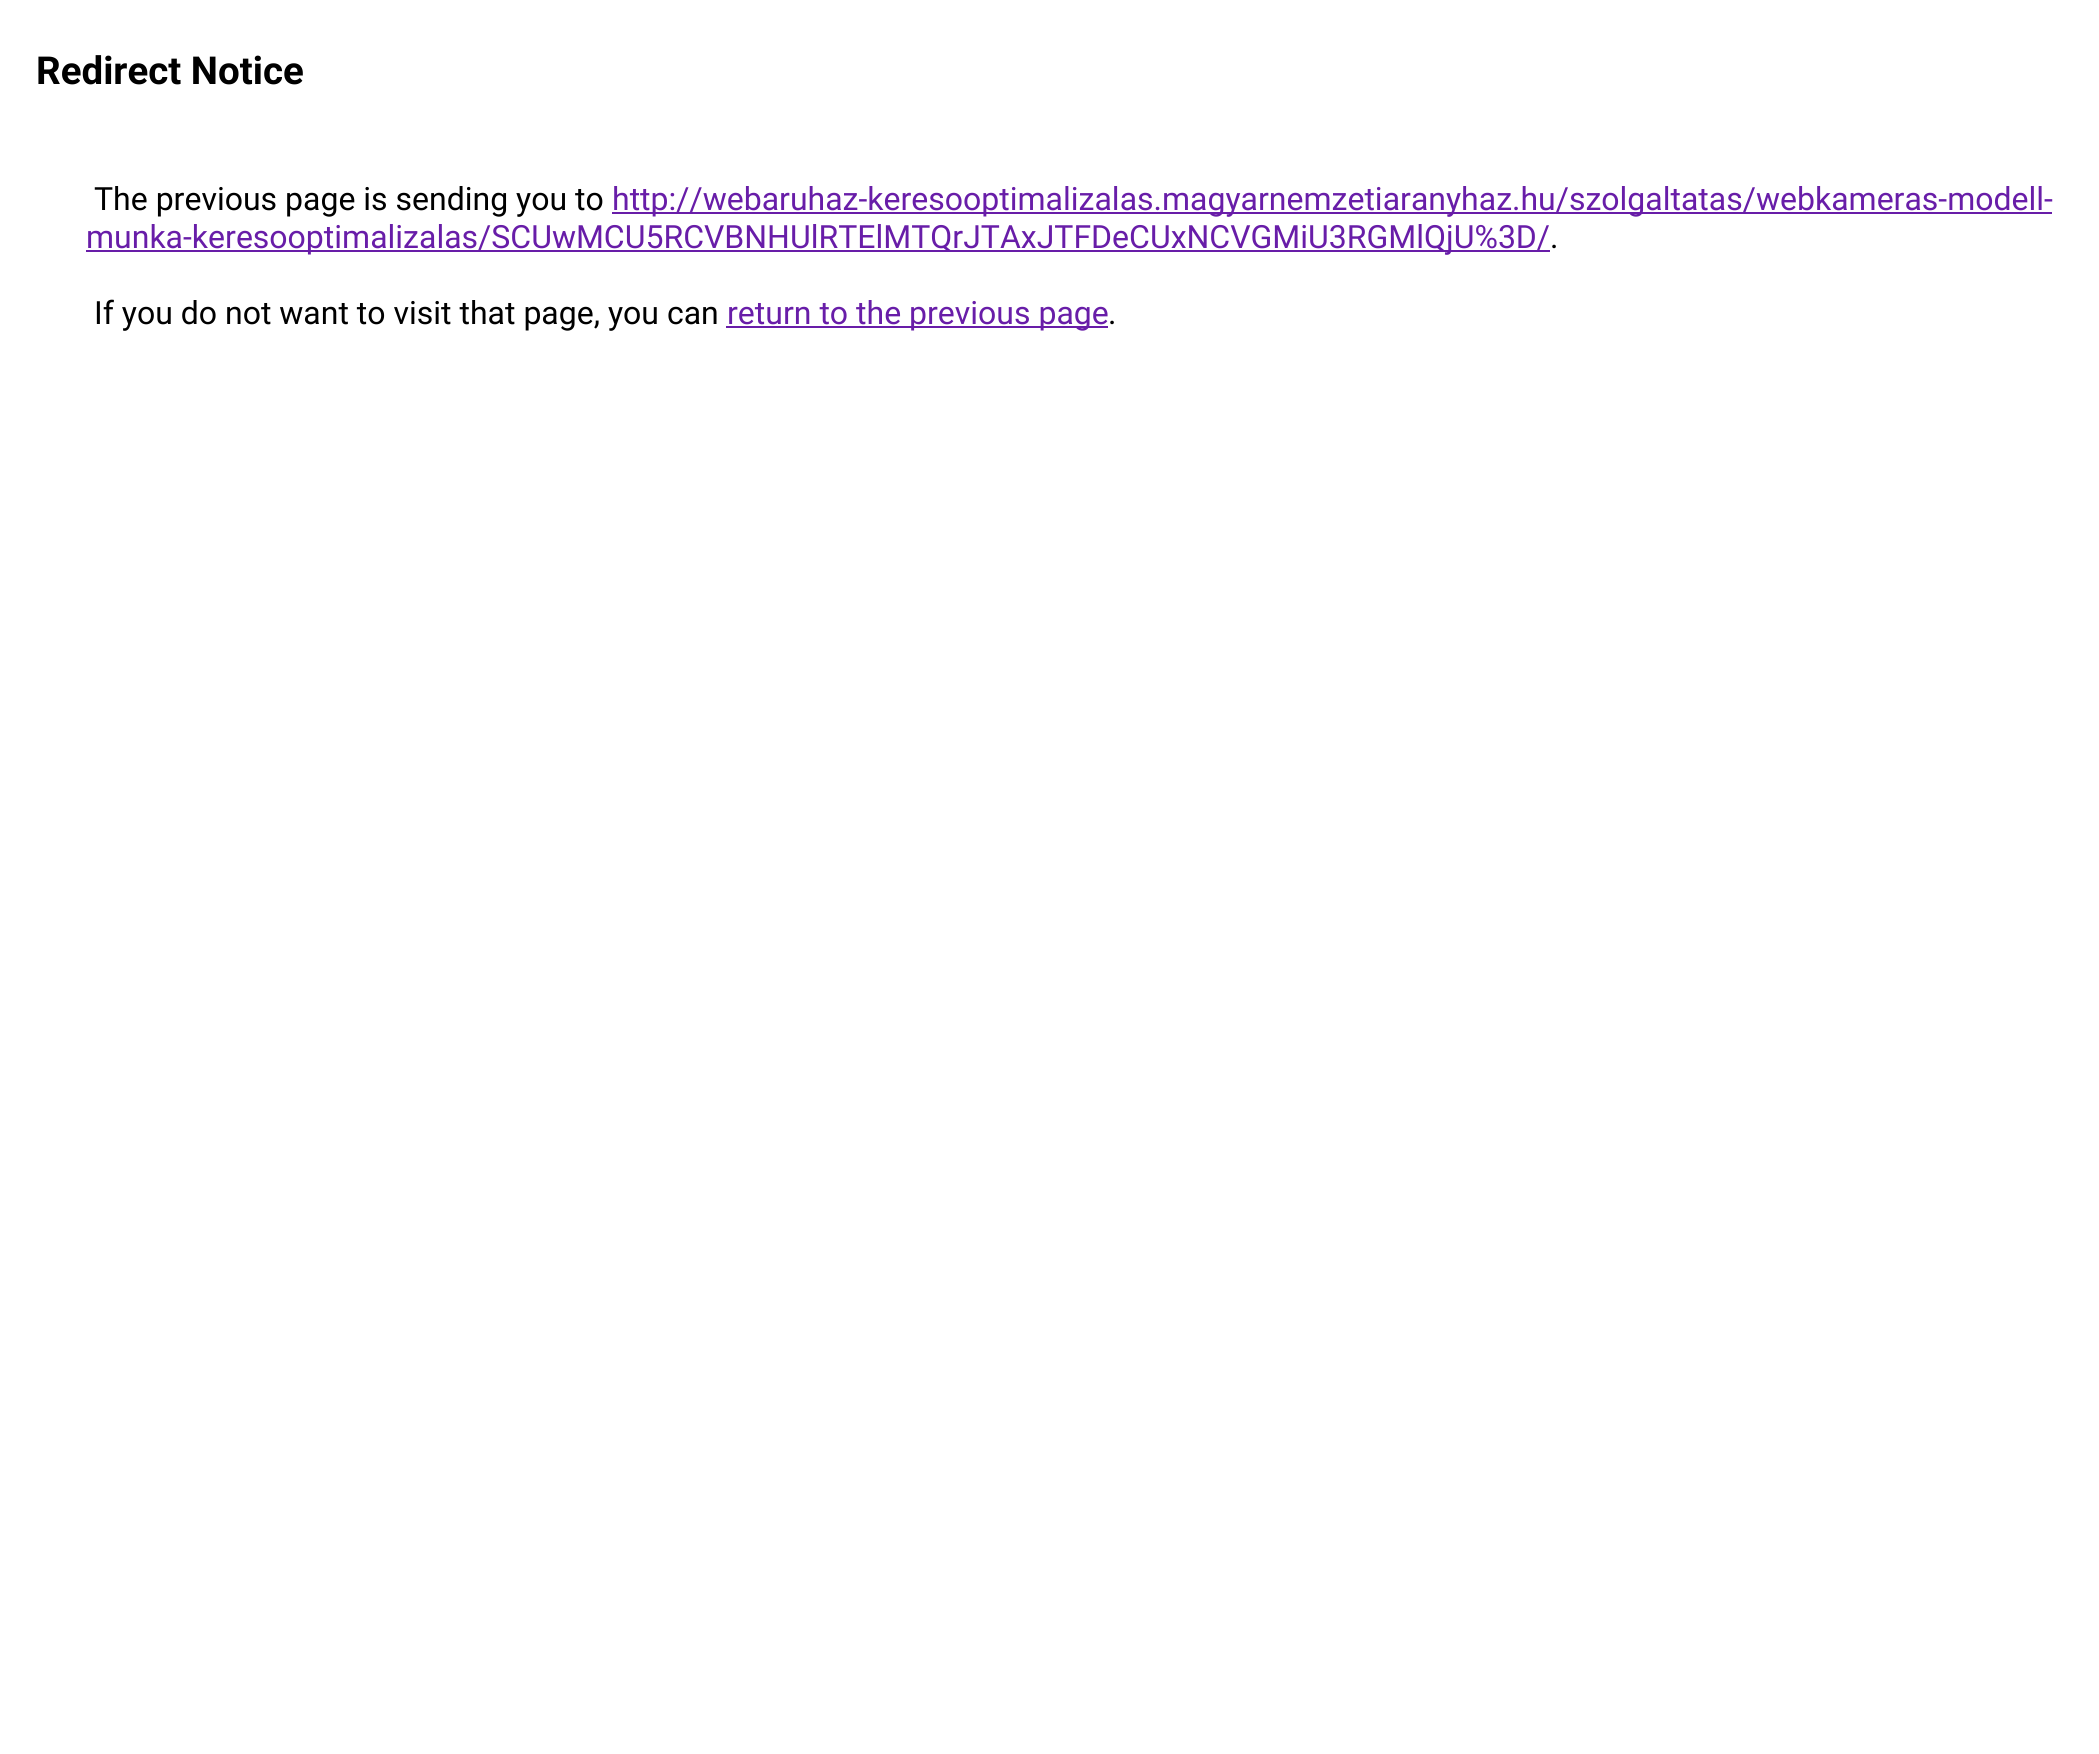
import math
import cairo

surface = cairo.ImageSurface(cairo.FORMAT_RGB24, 2099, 1754)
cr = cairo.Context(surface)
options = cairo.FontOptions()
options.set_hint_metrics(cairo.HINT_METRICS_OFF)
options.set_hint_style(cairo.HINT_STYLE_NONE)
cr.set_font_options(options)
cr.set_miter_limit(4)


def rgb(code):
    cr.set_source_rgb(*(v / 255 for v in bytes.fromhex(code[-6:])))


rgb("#ffffff")
cr.paint()
for x, y, w, h, color in [
    (612, 212, 1440, 2, "#681da8"),
    (86, 250, 1464, 2, "#681da8"),
    (726, 326, 382, 2, "#681da8"),
]:
    rgb(color)
    cr.rectangle(x, y, w, h)
    cr.fill()
cr.select_font_face("Roboto", cairo.FONT_SLANT_NORMAL, cairo.FONT_WEIGHT_BOLD)
cr.set_font_size(38.5)
rgb("#000000")
cr.move_to(36, 84)
cr.show_text("Redirect Notice")
cr.select_font_face("Roboto")
cr.set_font_size(32)
cr.move_to(94, 210)
cr.show_text("The previous page is sending you to")
rgb("#681da8")
cr.move_to(612, 210)
cr.show_text("http://webaruhaz-keresooptimalizalas.magyarnemzetiaranyhaz.hu/szolgaltatas/webkameras-modell-")
cr.move_to(86, 248)
cr.show_text("munka-keresooptimalizalas/SCUwMCU5RCVBNHUlRTElMTQrJTAxJTFDeCUxNCVGMiU3RGMlQjU%3D/")
rgb("#000000")
cr.move_to(1550, 248)
cr.show_text(".")
cr.move_to(94, 324)
cr.show_text("If you do not want to visit that page, you can")
rgb("#681da8")
cr.move_to(727, 324)
cr.show_text("return to the previous page")
rgb("#000000")
cr.move_to(1108, 324)
cr.show_text(".")
surface.write_to_png("page.png")
